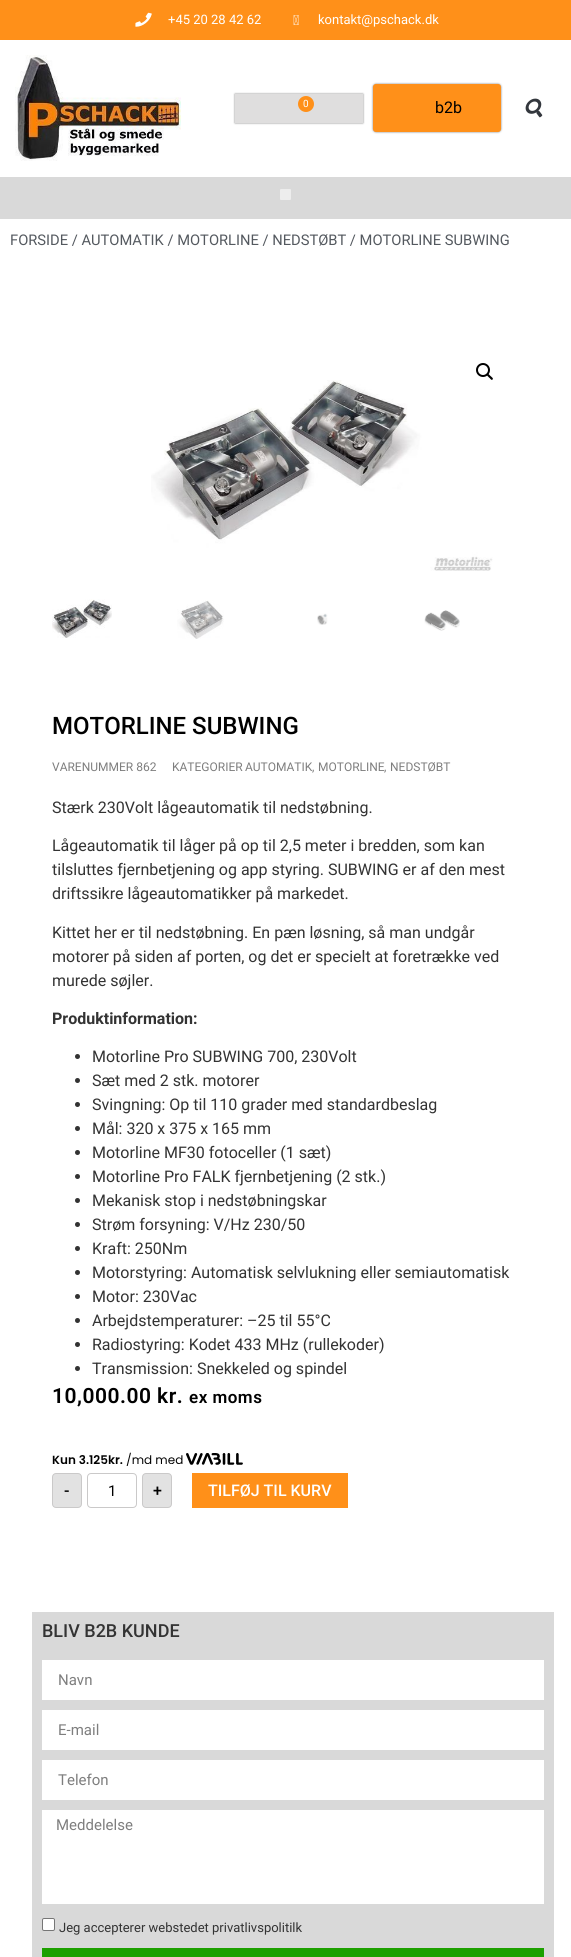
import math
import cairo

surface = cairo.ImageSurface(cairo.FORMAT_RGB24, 571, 1957)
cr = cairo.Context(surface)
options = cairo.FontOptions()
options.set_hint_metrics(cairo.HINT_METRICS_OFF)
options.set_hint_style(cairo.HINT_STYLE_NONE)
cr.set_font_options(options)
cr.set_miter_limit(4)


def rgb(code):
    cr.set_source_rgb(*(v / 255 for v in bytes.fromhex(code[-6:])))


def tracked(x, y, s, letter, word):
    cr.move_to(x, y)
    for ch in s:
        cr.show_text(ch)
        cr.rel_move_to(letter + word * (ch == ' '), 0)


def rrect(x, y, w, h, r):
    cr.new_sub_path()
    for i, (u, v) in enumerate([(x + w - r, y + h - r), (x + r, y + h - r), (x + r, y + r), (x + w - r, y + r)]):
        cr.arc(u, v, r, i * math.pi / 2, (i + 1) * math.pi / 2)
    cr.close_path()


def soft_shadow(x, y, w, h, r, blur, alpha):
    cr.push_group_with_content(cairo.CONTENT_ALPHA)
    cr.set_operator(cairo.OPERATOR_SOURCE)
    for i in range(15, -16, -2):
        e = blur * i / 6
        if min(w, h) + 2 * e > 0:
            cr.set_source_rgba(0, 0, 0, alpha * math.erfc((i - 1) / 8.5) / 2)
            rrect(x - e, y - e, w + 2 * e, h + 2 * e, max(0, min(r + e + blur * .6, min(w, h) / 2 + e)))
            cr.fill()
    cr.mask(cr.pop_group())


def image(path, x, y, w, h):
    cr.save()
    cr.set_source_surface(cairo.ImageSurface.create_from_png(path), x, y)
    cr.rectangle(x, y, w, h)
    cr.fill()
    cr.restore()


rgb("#ffffff")
cr.paint()
rgb("#ff9019")
cr.rectangle(0, 0, 571, 40)
cr.fill()
image("img/1.png", 135, 12, 17, 15)
image("img/2.png", 293, 15, 6, 10)
image("img/3.png", 15, 55, 166, 106)
rgb("#000000")
soft_shadow(235, 94, 128, 29, 0, 1, 0.5)
rgb("#dfdede")
cr.rectangle(235, 94, 128, 29)
cr.fill()
rgb("#ff9019")
cr.arc(306, 104, 8, 0, 2 * math.pi)
cr.fill()
rgb("#000000")
soft_shadow(373, 84, 128, 48, 3, 1, 0.5)
rgb("#ff9019")
rrect(373, 84, 128, 48, 3)
cr.fill()
image("img/4.png", 525, 98, 18, 20)
rgb("#d9d9d9")
cr.rectangle(0, 177, 571, 42)
cr.fill()
rgb("#ededed")
rrect(280, 189, 11, 11, 1)
cr.fill()
cr.arc(483, 370, 6, 0, 2 * math.pi)
rgb("#000000")
cr.stroke()
cr.new_path()
cr.move_to(487, 374)
cr.curve_to(488, 373, 490, 375.5, 490.5, 376)
cr.curve_to(491, 376.5, 494, 378.5, 492.5, 379.5)
cr.curve_to(491.5, 381, 490, 378, 489, 377.5)
cr.curve_to(488.5, 377, 486, 375, 487, 374)
cr.close_path()
cr.fill()
image("img/5.png", 151, 380, 342, 191)
image("img/6.png", 52, 599, 60, 39)
image("img/7.png", 177, 600, 47, 39)
image("img/8.png", 317, 613, 11, 12)
image("img/9.png", 424, 610, 36, 21)
rgb("#333333")
cr.arc(77.5, 1056.5, 2.5, 0, 2 * math.pi)
cr.fill()
cr.arc(77.5, 1080.5, 2.5, 0, 2 * math.pi)
cr.fill()
cr.arc(77.5, 1104.5, 2.5, 0, 2 * math.pi)
cr.fill()
cr.arc(77.5, 1128.5, 2.5, 0, 2 * math.pi)
cr.fill()
cr.arc(77.5, 1152.5, 2.5, 0, 2 * math.pi)
cr.fill()
cr.arc(77.5, 1176.5, 2.5, 0, 2 * math.pi)
cr.fill()
cr.arc(77.5, 1200.5, 2.5, 0, 2 * math.pi)
cr.fill()
cr.arc(77.5, 1224.5, 2.5, 0, 2 * math.pi)
cr.fill()
cr.arc(77.5, 1248.5, 2.5, 0, 2 * math.pi)
cr.fill()
cr.arc(77.5, 1272.5, 2.5, 0, 2 * math.pi)
cr.fill()
cr.arc(77.5, 1296.5, 2.5, 0, 2 * math.pi)
cr.fill()
cr.arc(77.5, 1320.5, 2.5, 0, 2 * math.pi)
cr.fill()
cr.arc(77.5, 1344.5, 2.5, 0, 2 * math.pi)
cr.fill()
cr.arc(77.5, 1368.5, 2.5, 0, 2 * math.pi)
cr.fill()
image("img/10.png", 52, 1452, 191, 14)
rgb("#e2e2e2")
rrect(52.5, 1473.5, 29, 34, 3.5)
cr.fill_preserve()
rgb("#cac9c9")
cr.set_line_width(1)
cr.stroke()
rrect(87.5, 1473.5, 49, 34, 3.5)
cr.stroke()
rgb("#e2e2e2")
rrect(142.5, 1473.5, 29, 34, 3.5)
cr.fill_preserve()
rgb("#cac9c9")
cr.stroke()
for x, y, w, h, color in [
    (192, 1473, 156, 35, "#ff9019"),
    (32, 1612, 522, 345, "#d9d9d9"),
    (42, 1660, 502, 40, "#ffffff"),
    (42, 1710, 502, 40, "#ffffff"),
    (42, 1760, 502, 40, "#ffffff"),
    (42, 1810, 502, 94, "#ffffff"),
]:
    rgb(color)
    cr.rectangle(x, y, w, h)
    cr.fill()
rrect(42.5, 1918.5, 12, 12, 1.5)
cr.fill_preserve()
rgb("#767676")
cr.stroke()
rgb("#1da000")
cr.rectangle(42, 1948, 502, 9)
cr.fill()
cr.select_font_face("Roboto")
cr.set_font_size(13)
rgb("#ffffff")
cr.move_to(168, 24)
cr.show_text("+45 20 28 42 62")
cr.move_to(318, 24)
cr.show_text("kontakt@pschack.dk")
cr.set_font_size(10)
cr.move_to(303, 107)
cr.show_text("0")
cr.set_font_size(16)
rgb("#000000")
cr.move_to(435, 113)
cr.show_text("b2b")
cr.set_font_size(14.7)
rgb("#54595f")
cr.move_to(10, 245)
cr.show_text("FORSIDE / AUTOMATIK / MOTORLINE / NEDSTØBT / MOTORLINE SUBWING")
cr.select_font_face("Roboto Medium")
cr.set_font_size(24)
rgb("#000000")
cr.move_to(52, 734)
cr.show_text("MOTORLINE SUBWING")
cr.select_font_face("Roboto")
cr.set_font_size(12)
rgb("#7e7e7e")
for x, y, s in [
    (52, 771, "VARENUMMER 862"),
    (172, 771, "KATEGORIER"),
    (245, 771, "AUTOMATIK"),
    (312, 771, ","),
    (318, 771, "MOTORLINE"),
    (384, 771, ","),
    (390, 771, "NEDSTØBT"),
]:
    cr.move_to(x, y)
    cr.show_text(s)
cr.set_font_size(16)
rgb("#333333")
for x, y, s in [
    (52, 813, "Stærk 230Volt lågeautomatik til nedstøbning."),
    (52, 851, "Lågeautomatik til låger på op til 2,5 meter i bredden, som kan"),
    (52, 875, "tilsluttes fjernbetjening og app styring. SUBWING er af den mest"),
    (52, 899, "driftssikre lågeautomatikker på markedet."),
    (52, 938, "Kittet her er til nedstøbning. En pæn løsning, så man undgår"),
    (52, 962, "motorer på siden af porten, og det er specielt at foretrække ved"),
    (52, 986, "murede søjler."),
]:
    cr.move_to(x, y)
    cr.show_text(s)
cr.select_font_face("Roboto", cairo.FONT_SLANT_NORMAL, cairo.FONT_WEIGHT_BOLD)
cr.move_to(52, 1024)
cr.show_text("Produktinformation:")
cr.select_font_face("Roboto")
for x, y, s in [
    (92, 1062, "Motorline Pro SUBWING 700, 230Volt"),
    (92, 1086, "Sæt med 2 stk. motorer"),
    (92, 1110, "Svingning: Op til 110 grader med standardbeslag"),
    (92, 1134, "Mål: 320 x 375 x 165 mm"),
    (92, 1158, "Motorline MF30 fotoceller (1 sæt)"),
    (92, 1182, "Motorline Pro FALK fjernbetjening (2 stk.)"),
    (92, 1206, "Mekanisk stop i nedstøbningskar"),
    (92, 1230, "Strøm forsyning: V/Hz 230/50"),
    (92, 1254, "Kraft: 250Nm"),
    (92, 1278, "Motorstyring: Automatisk selvlukning eller semiautomatisk"),
    (92, 1302, "Motor: 230Vac"),
    (92, 1326, "Arbejdstemperaturer: –25 til 55°C"),
    (92, 1350, "Radiostyring: Kodet 433 MHz (rullekoder)"),
    (92, 1374, "Transmission: Snekkeled og spindel"),
]:
    cr.move_to(x, y)
    cr.show_text(s)
cr.select_font_face("Roboto SemiBold")
cr.set_font_size(21)
rgb("#000000")
tracked(52, 1403, "10,000.00 kr.", 0.5, 0)
cr.set_font_size(17)
tracked(189, 1403, "ex moms", 0.5, 0)
cr.select_font_face("Roboto Medium")
cr.set_font_size(16)
cr.move_to(64, 1496)
cr.show_text("-")
cr.select_font_face("Roboto")
cr.set_font_size(15)
cr.move_to(108, 1496)
cr.show_text("1")
cr.select_font_face("Roboto Medium")
cr.set_font_size(16)
cr.move_to(153, 1496)
cr.show_text("+")
rgb("#ffffff")
cr.move_to(208, 1496)
cr.show_text("TILFØJ TIL KURV")
cr.set_font_size(18)
rgb("#333333")
cr.move_to(42, 1637)
cr.show_text("BLIV B2B KUNDE")
cr.select_font_face("Roboto")
cr.set_font_size(15)
rgb("#7e7e7e")
for x, y, s in [
    (58, 1685, "Navn"),
    (58, 1735, "E-mail"),
    (58, 1785, "Telefon"),
    (56, 1830, "Meddelelse"),
]:
    cr.move_to(x, y)
    cr.show_text(s)
cr.set_font_size(13)
rgb("#333333")
cr.move_to(59, 1932)
cr.show_text("Jeg accepterer webstedet privatlivspolitilk")
surface.write_to_png("page.png")
